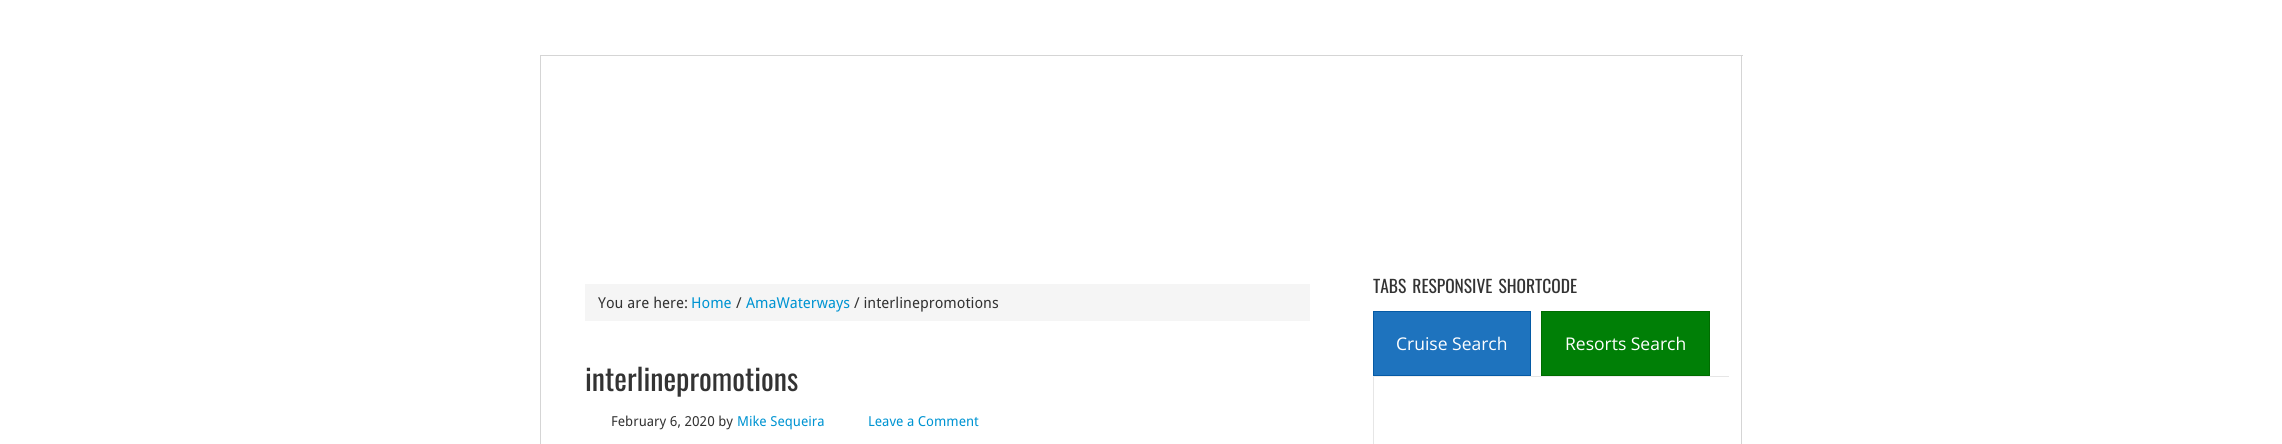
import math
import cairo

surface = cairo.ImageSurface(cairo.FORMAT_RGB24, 2282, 444)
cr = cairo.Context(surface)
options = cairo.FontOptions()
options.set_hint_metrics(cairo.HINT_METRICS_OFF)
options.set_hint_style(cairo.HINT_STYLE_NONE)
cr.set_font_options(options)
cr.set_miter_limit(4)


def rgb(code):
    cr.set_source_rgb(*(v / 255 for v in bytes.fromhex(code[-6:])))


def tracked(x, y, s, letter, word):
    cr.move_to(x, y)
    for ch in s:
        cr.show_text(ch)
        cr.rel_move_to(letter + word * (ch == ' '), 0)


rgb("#ffffff")
cr.paint()
for x, y, w, h, color in [
    (540, 55, 1203, 1, "#d5d5d5"),
    (1741, 55, 1, 389, "#d5d5d5"),
    (540, 55, 1, 389, "#d5d5d5"),
    (585, 284, 725, 37, "#f5f5f5"),
]:
    rgb(color)
    cr.rectangle(x, y, w, h)
    cr.fill()
cr.save()
cr.rectangle(1373, 311, 356, 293)
cr.clip()
cr.rectangle(1373.5, 376.5, 357, 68)
rgb("#e6e6e6")
cr.set_line_width(1)
cr.stroke()
cr.restore()
rgb("#eeeeee")
cr.rectangle(1373, 376, 158, 1)
cr.fill()
rgb("#1e73be")
cr.rectangle(1373.5, 311.5, 157, 64)
cr.fill_preserve()
rgb("#055aa5")
cr.set_line_width(1)
cr.stroke()
rgb("#eeeeee")
cr.rectangle(1541, 376, 169, 1)
cr.fill()
rgb("#007f06")
cr.rectangle(1541.5, 311.5, 168, 64)
cr.fill_preserve()
rgb("#006c00")
cr.stroke()
cr.select_font_face("Droid Sans")
cr.set_font_size(15)
rgb("#333333")
cr.move_to(598, 308)
cr.show_text("You are here:")
rgb("#0094d2")
cr.move_to(691, 308)
cr.show_text("Home")
rgb("#333333")
cr.move_to(736, 308)
cr.show_text("/")
rgb("#0094d2")
cr.move_to(746, 308)
cr.show_text("AmaWaterways")
rgb("#333333")
cr.move_to(854, 308)
cr.show_text("/ interlinepromotions")
cr.select_font_face("Oswald")
cr.set_font_size(30)
cr.move_to(585, 391)
cr.show_text("interlinepromotions")
cr.select_font_face("Droid Sans")
cr.set_font_size(13.75)
cr.move_to(611, 426)
cr.show_text("February 6, 2020 by")
rgb("#0094d2")
cr.move_to(737, 426)
cr.show_text("Mike Sequeira")
cr.move_to(868, 426)
cr.show_text("Leave a Comment")
cr.select_font_face("Oswald")
cr.set_font_size(17.5)
rgb("#333333")
tracked(1373, 293, "TABS RESPONSIVE SHORTCODE", 0, 2)
cr.select_font_face("Open Sans")
rgb("#ffffff")
cr.move_to(1396, 350)
cr.show_text("Cruise Search")
cr.move_to(1565, 350)
cr.show_text("Resorts Search")
surface.write_to_png("page.png")
